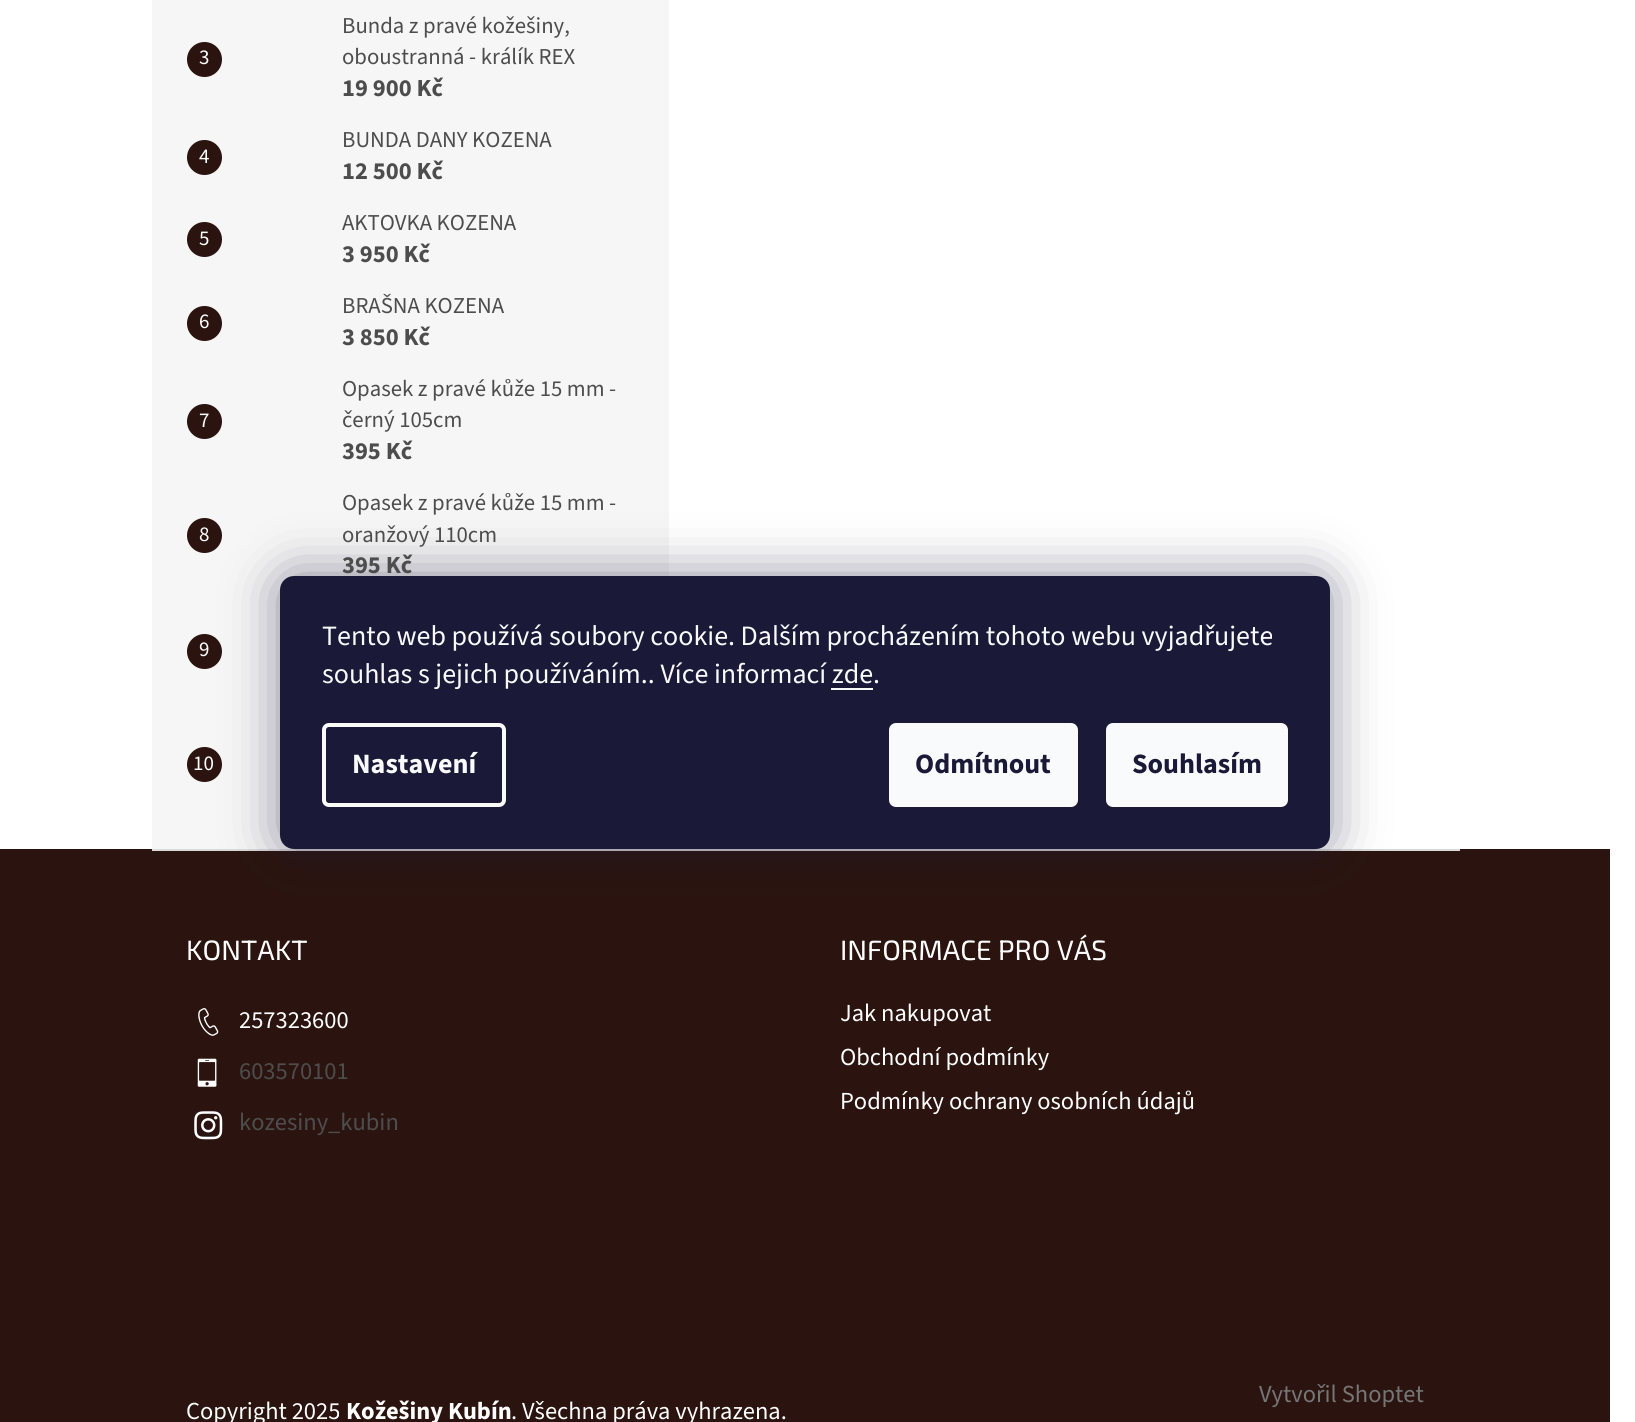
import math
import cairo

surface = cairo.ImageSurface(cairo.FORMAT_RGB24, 1635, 1422)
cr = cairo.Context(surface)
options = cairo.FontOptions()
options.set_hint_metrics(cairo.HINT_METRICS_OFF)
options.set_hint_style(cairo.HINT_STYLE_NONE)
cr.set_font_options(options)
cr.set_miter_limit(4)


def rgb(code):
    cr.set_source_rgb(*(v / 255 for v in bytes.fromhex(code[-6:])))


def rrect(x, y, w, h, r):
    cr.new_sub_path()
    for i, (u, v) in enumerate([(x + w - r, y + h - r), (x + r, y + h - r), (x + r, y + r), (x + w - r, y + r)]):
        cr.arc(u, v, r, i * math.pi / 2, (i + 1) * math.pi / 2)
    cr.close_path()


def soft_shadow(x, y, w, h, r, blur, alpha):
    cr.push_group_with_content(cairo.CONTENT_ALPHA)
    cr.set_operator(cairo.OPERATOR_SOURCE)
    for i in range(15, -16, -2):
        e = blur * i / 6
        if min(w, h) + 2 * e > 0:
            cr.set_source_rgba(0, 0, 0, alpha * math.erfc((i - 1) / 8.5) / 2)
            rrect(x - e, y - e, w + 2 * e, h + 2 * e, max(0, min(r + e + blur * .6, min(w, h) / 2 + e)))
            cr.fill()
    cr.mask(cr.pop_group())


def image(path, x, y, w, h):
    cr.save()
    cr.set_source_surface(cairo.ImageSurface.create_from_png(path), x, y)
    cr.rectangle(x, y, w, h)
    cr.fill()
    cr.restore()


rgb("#ffffff")
cr.paint()
rgb("#f6f6f6")
cr.rectangle(152, 0, 517, 849)
cr.fill()
rgb("#2b140f")
cr.arc(204.5, 59.5, 17.5, 0, 2 * math.pi)
cr.fill()
cr.arc(204.5, 157.5, 17.5, 0, 2 * math.pi)
cr.fill()
cr.arc(204.5, 239.5, 17.5, 0, 2 * math.pi)
cr.fill()
cr.arc(204.5, 323.5, 17.5, 0, 2 * math.pi)
cr.fill()
cr.arc(204.5, 421.5, 17.5, 0, 2 * math.pi)
cr.fill()
cr.arc(204.5, 535.5, 17.5, 0, 2 * math.pi)
cr.fill()
cr.arc(204.5, 651.5, 17.5, 0, 2 * math.pi)
cr.fill()
cr.arc(204.5, 764.5, 17.5, 0, 2 * math.pi)
cr.fill()
cr.rectangle(0, 849, 1610, 573)
cr.fill()
rgb("#dadada")
cr.rectangle(152, 849, 1308, 2)
cr.fill()
image("img/1.png", 198, 1008, 21, 28)
image("img/2.png", 197, 1058, 20, 29)
image("img/3.png", 194, 1111, 29, 29)
rgb("#1b1939")
soft_shadow(280, 576, 1050, 273, 14, 26, 0.5)
rgb("#1a1937")
rrect(280, 576, 1050, 273, 14)
cr.fill()
rgb("#f8fafb")
cr.rectangle(831, 688, 42, 2)
cr.fill()
rrect(324, 725, 180, 80, 5)
cr.set_line_width(4)
cr.stroke()
rrect(889, 723, 189, 84, 7)
cr.fill()
rrect(1106, 723, 182, 84, 7)
cr.fill()
cr.select_font_face("Source Sans 3")
cr.set_font_size(21)
rgb("#ffffff")
cr.move_to(199, 64)
cr.show_text("3")
cr.set_font_size(22.75)
rgb("#4d4d4d")
cr.move_to(342, 33)
cr.show_text("Bunda z pravé kožešiny,")
cr.move_to(342, 64)
cr.show_text("oboustranná - králík REX")
cr.select_font_face("Source Sans 3", cairo.FONT_SLANT_NORMAL, cairo.FONT_WEIGHT_BOLD)
cr.set_font_size(24.5)
cr.move_to(342, 96)
cr.show_text("19 900 Kč")
cr.select_font_face("Source Sans 3")
cr.set_font_size(21)
rgb("#ffffff")
cr.move_to(199, 163)
cr.show_text("4")
cr.set_font_size(22.75)
rgb("#4d4d4d")
cr.move_to(342, 147)
cr.show_text("BUNDA DANY KOZENA")
cr.select_font_face("Source Sans 3", cairo.FONT_SLANT_NORMAL, cairo.FONT_WEIGHT_BOLD)
cr.set_font_size(24.5)
cr.move_to(342, 179)
cr.show_text("12 500 Kč")
cr.select_font_face("Source Sans 3")
cr.set_font_size(21)
rgb("#ffffff")
cr.move_to(199, 245)
cr.show_text("5")
cr.set_font_size(22.75)
rgb("#4d4d4d")
cr.move_to(342, 230)
cr.show_text("AKTOVKA KOZENA")
cr.select_font_face("Source Sans 3", cairo.FONT_SLANT_NORMAL, cairo.FONT_WEIGHT_BOLD)
cr.set_font_size(24.5)
cr.move_to(342, 262)
cr.show_text("3 950 Kč")
cr.select_font_face("Source Sans 3")
cr.set_font_size(21)
rgb("#ffffff")
cr.move_to(199, 328)
cr.show_text("6")
cr.set_font_size(22.75)
rgb("#4d4d4d")
cr.move_to(342, 313)
cr.show_text("BRAŠNA KOZENA")
cr.select_font_face("Source Sans 3", cairo.FONT_SLANT_NORMAL, cairo.FONT_WEIGHT_BOLD)
cr.set_font_size(24.5)
cr.move_to(342, 345)
cr.show_text("3 850 Kč")
cr.select_font_face("Source Sans 3")
cr.set_font_size(21)
rgb("#ffffff")
cr.move_to(199, 427)
cr.show_text("7")
cr.set_font_size(22.75)
rgb("#4d4d4d")
cr.move_to(342, 396)
cr.show_text("Opasek z pravé kůže 15 mm -")
cr.move_to(342, 427)
cr.show_text("černý 105cm")
cr.select_font_face("Source Sans 3", cairo.FONT_SLANT_NORMAL, cairo.FONT_WEIGHT_BOLD)
cr.set_font_size(24.5)
cr.move_to(342, 459)
cr.show_text("395 Kč")
cr.select_font_face("Source Sans 3")
cr.set_font_size(21)
rgb("#ffffff")
cr.move_to(199, 541)
cr.show_text("8")
cr.set_font_size(22.75)
rgb("#4d4d4d")
cr.move_to(342, 510)
cr.show_text("Opasek z pravé kůže 15 mm -")
cr.move_to(342, 542)
cr.show_text("oranžový 110cm")
cr.select_font_face("Source Sans 3", cairo.FONT_SLANT_NORMAL, cairo.FONT_WEIGHT_BOLD)
cr.set_font_size(24.5)
cr.move_to(342, 573)
cr.show_text("395 Kč")
cr.select_font_face("Source Sans 3")
cr.set_font_size(21)
rgb("#ffffff")
cr.move_to(199, 656)
cr.show_text("9")
cr.move_to(193, 770)
cr.show_text("10")
cr.select_font_face("Exo 2")
cr.set_font_size(28)
cr.move_to(186, 960)
cr.show_text("KONTAKT")
cr.select_font_face("Source Sans 3")
cr.set_font_size(24.5)
cr.move_to(239, 1028)
cr.show_text("257323600")
rgb("#4d4d4d")
cr.move_to(239, 1079)
cr.show_text("603570101")
cr.move_to(239, 1130)
cr.show_text("kozesiny_kubin")
cr.select_font_face("Exo 2")
cr.set_font_size(28)
rgb("#ffffff")
cr.move_to(840, 960)
cr.show_text("INFORMACE PRO VÁS")
cr.select_font_face("Source Sans 3")
cr.set_font_size(24.5)
for x, y, s in [
    (840, 1021, "Jak nakupovat"),
    (840, 1065, "Obchodní podmínky"),
    (840, 1109, "Podmínky ochrany osobních údajů"),
]:
    cr.move_to(x, y)
    cr.show_text(s)
rgb("#767676")
cr.move_to(1259, 1402)
cr.show_text("Vytvořil Shoptet")
rgb("#ffffff")
cr.move_to(186, 1419)
cr.show_text("Copyright 2025")
cr.select_font_face("Source Sans 3", cairo.FONT_SLANT_NORMAL, cairo.FONT_WEIGHT_BOLD)
cr.move_to(346, 1419)
cr.show_text("Kožešiny Kubín")
cr.select_font_face("Source Sans 3")
cr.move_to(511, 1419)
cr.show_text(". Všechna práva vyhrazena.")
cr.set_font_size(28)
rgb("#f8fafb")
cr.move_to(322, 645)
cr.show_text("Tento web používá soubory cookie. Dalším procházením tohoto webu vyjadřujete")
cr.move_to(322, 683)
cr.show_text("souhlas s jejich používáním.. Více informací zde.")
cr.select_font_face("Source Sans 3", cairo.FONT_SLANT_NORMAL, cairo.FONT_WEIGHT_BOLD)
cr.move_to(352, 773)
cr.show_text("Nastavení")
rgb("#1a1937")
cr.move_to(915, 773)
cr.show_text("Odmítnout")
cr.move_to(1132, 773)
cr.show_text("Souhlasím")
surface.write_to_png("page.png")
